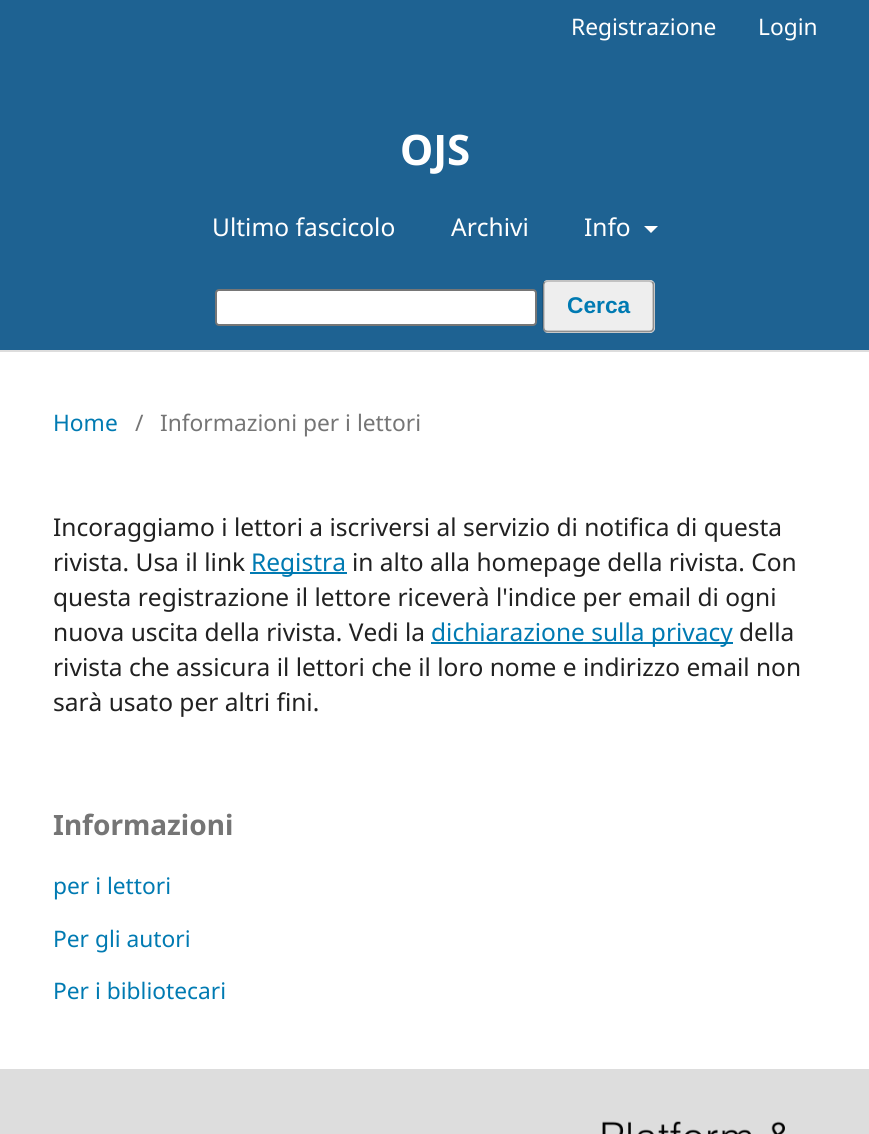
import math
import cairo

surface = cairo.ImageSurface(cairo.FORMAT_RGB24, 869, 1134)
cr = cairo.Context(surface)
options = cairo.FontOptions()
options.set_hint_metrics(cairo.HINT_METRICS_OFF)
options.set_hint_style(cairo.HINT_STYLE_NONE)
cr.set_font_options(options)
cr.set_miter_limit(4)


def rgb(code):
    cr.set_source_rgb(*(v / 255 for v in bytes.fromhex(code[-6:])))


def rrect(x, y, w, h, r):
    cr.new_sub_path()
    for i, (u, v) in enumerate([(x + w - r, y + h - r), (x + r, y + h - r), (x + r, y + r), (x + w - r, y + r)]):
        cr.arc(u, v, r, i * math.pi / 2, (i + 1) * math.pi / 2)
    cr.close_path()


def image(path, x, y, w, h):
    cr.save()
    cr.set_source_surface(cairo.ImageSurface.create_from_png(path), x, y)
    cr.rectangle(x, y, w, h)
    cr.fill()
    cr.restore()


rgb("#ffffff")
cr.paint()
rgb("#1e6292")
cr.rectangle(0, 0, 869, 350)
cr.fill()
rgb("#dddddd")
cr.rectangle(0, 350, 869, 2)
cr.fill()
rgb("#ffffff")
cr.new_path()
cr.move_to(644, 226)
cr.line_to(658, 226)
cr.line_to(651, 233)
cr.close_path()
cr.fill()
rrect(216, 290, 320, 35, 3)
cr.fill_preserve()
rgb("#767676")
cr.stroke()
rgb("#eeeeee")
rrect(543, 280, 112, 53, 5)
cr.fill()
cr.new_path()
cr.move_to(544.5, 282)
cr.line_to(547.5, 281)
cr.line_to(649.5, 281)
cr.line_to(652.5, 282)
rgb("#bbbbbb")
cr.set_line_width(1.8)
cr.stroke()
cr.new_path()
cr.move_to(652.5, 282)
cr.curve_to(653, 283, 653.5, 284, 653.5, 285)
cr.line_to(653.5, 327)
cr.curve_to(653.5, 328.5, 653, 329.5, 652.5, 330.5)
cr.curve_to(651.5, 331, 650.5, 331.5, 649, 331.5)
cr.line_to(548, 331.5)
cr.curve_to(546.5, 331.5, 545.5, 331, 544.5, 330.5)
cr.curve_to(544, 329.5, 543.5, 328.5, 543.5, 327)
cr.line_to(543.5, 285)
cr.curve_to(543.5, 284, 544, 283, 544.5, 282)
cr.set_source_rgba(0, 0, 0, 0.4)
cr.stroke()
for x, y, w, h, color in [
    (250, 572, 97, 2, "#007ab2"),
    (431, 642, 302, 2, "#007ab2"),
    (0, 1069, 869, 65, "#dddddd"),
]:
    rgb(color)
    cr.rectangle(x, y, w, h)
    cr.fill()
image("img/1.png", 602, 1121, 183, 13)
cr.select_font_face("Noto Sans")
cr.set_font_size(22.75)
rgb("#ffffff")
cr.move_to(571, 35)
cr.show_text("Registrazione")
cr.move_to(758, 35)
cr.show_text("Login")
cr.select_font_face("Noto Sans", cairo.FONT_SLANT_NORMAL, cairo.FONT_WEIGHT_BOLD)
cr.set_font_size(42)
cr.move_to(400, 165)
cr.show_text("OJS")
cr.select_font_face("Noto Sans")
cr.set_font_size(24.5)
for x, y, s in [
    (212, 236, "Ultimo fascicolo"),
    (451, 236, "Archivi"),
    (584, 236, "Info"),
]:
    cr.move_to(x, y)
    cr.show_text(s)
cr.select_font_face("Liberation Sans", cairo.FONT_SLANT_NORMAL, cairo.FONT_WEIGHT_BOLD)
cr.set_font_size(22.75)
rgb("#007ab2")
cr.move_to(567, 313)
cr.show_text("Cerca")
cr.select_font_face("Noto Sans")
cr.move_to(53, 431)
cr.show_text("Home")
rgb("#757575")
cr.move_to(135, 431)
cr.show_text("/")
cr.move_to(160, 431)
cr.show_text("Informazioni per i lettori")
cr.set_font_size(24.5)
rgb("#212121")
cr.move_to(53, 536)
cr.show_text("Incoraggiamo i lettori a iscriversi al servizio di notifica di questa")
cr.move_to(53, 571)
cr.show_text("rivista. Usa il link")
rgb("#007ab2")
cr.move_to(251, 571)
cr.show_text("Registra")
rgb("#212121")
for x, y, s in [
    (352, 571, "in alto alla homepage della rivista. Con"),
    (53, 606, "questa registrazione il lettore riceverà l'indice per email di ogni"),
    (53, 641, "nuova uscita della rivista. Vedi la"),
]:
    cr.move_to(x, y)
    cr.show_text(s)
rgb("#007ab2")
cr.move_to(431, 641)
cr.show_text("dichiarazione sulla privacy")
rgb("#212121")
for x, y, s in [
    (739, 641, "della"),
    (53, 676, "rivista che assicura il lettori che il loro nome e indirizzo email non"),
    (53, 711, "sarà usato per altri fini."),
]:
    cr.move_to(x, y)
    cr.show_text(s)
cr.select_font_face("Noto Sans", cairo.FONT_SLANT_NORMAL, cairo.FONT_WEIGHT_BOLD)
cr.set_font_size(28)
rgb("#757575")
cr.move_to(53, 835)
cr.show_text("Informazioni")
cr.select_font_face("Noto Sans")
cr.set_font_size(22.75)
rgb("#007ab2")
for x, y, s in [
    (53, 894, "per i lettori"),
    (53, 947, "Per gli autori"),
    (53, 999, "Per i bibliotecari"),
]:
    cr.move_to(x, y)
    cr.show_text(s)
surface.write_to_png("page.png")
